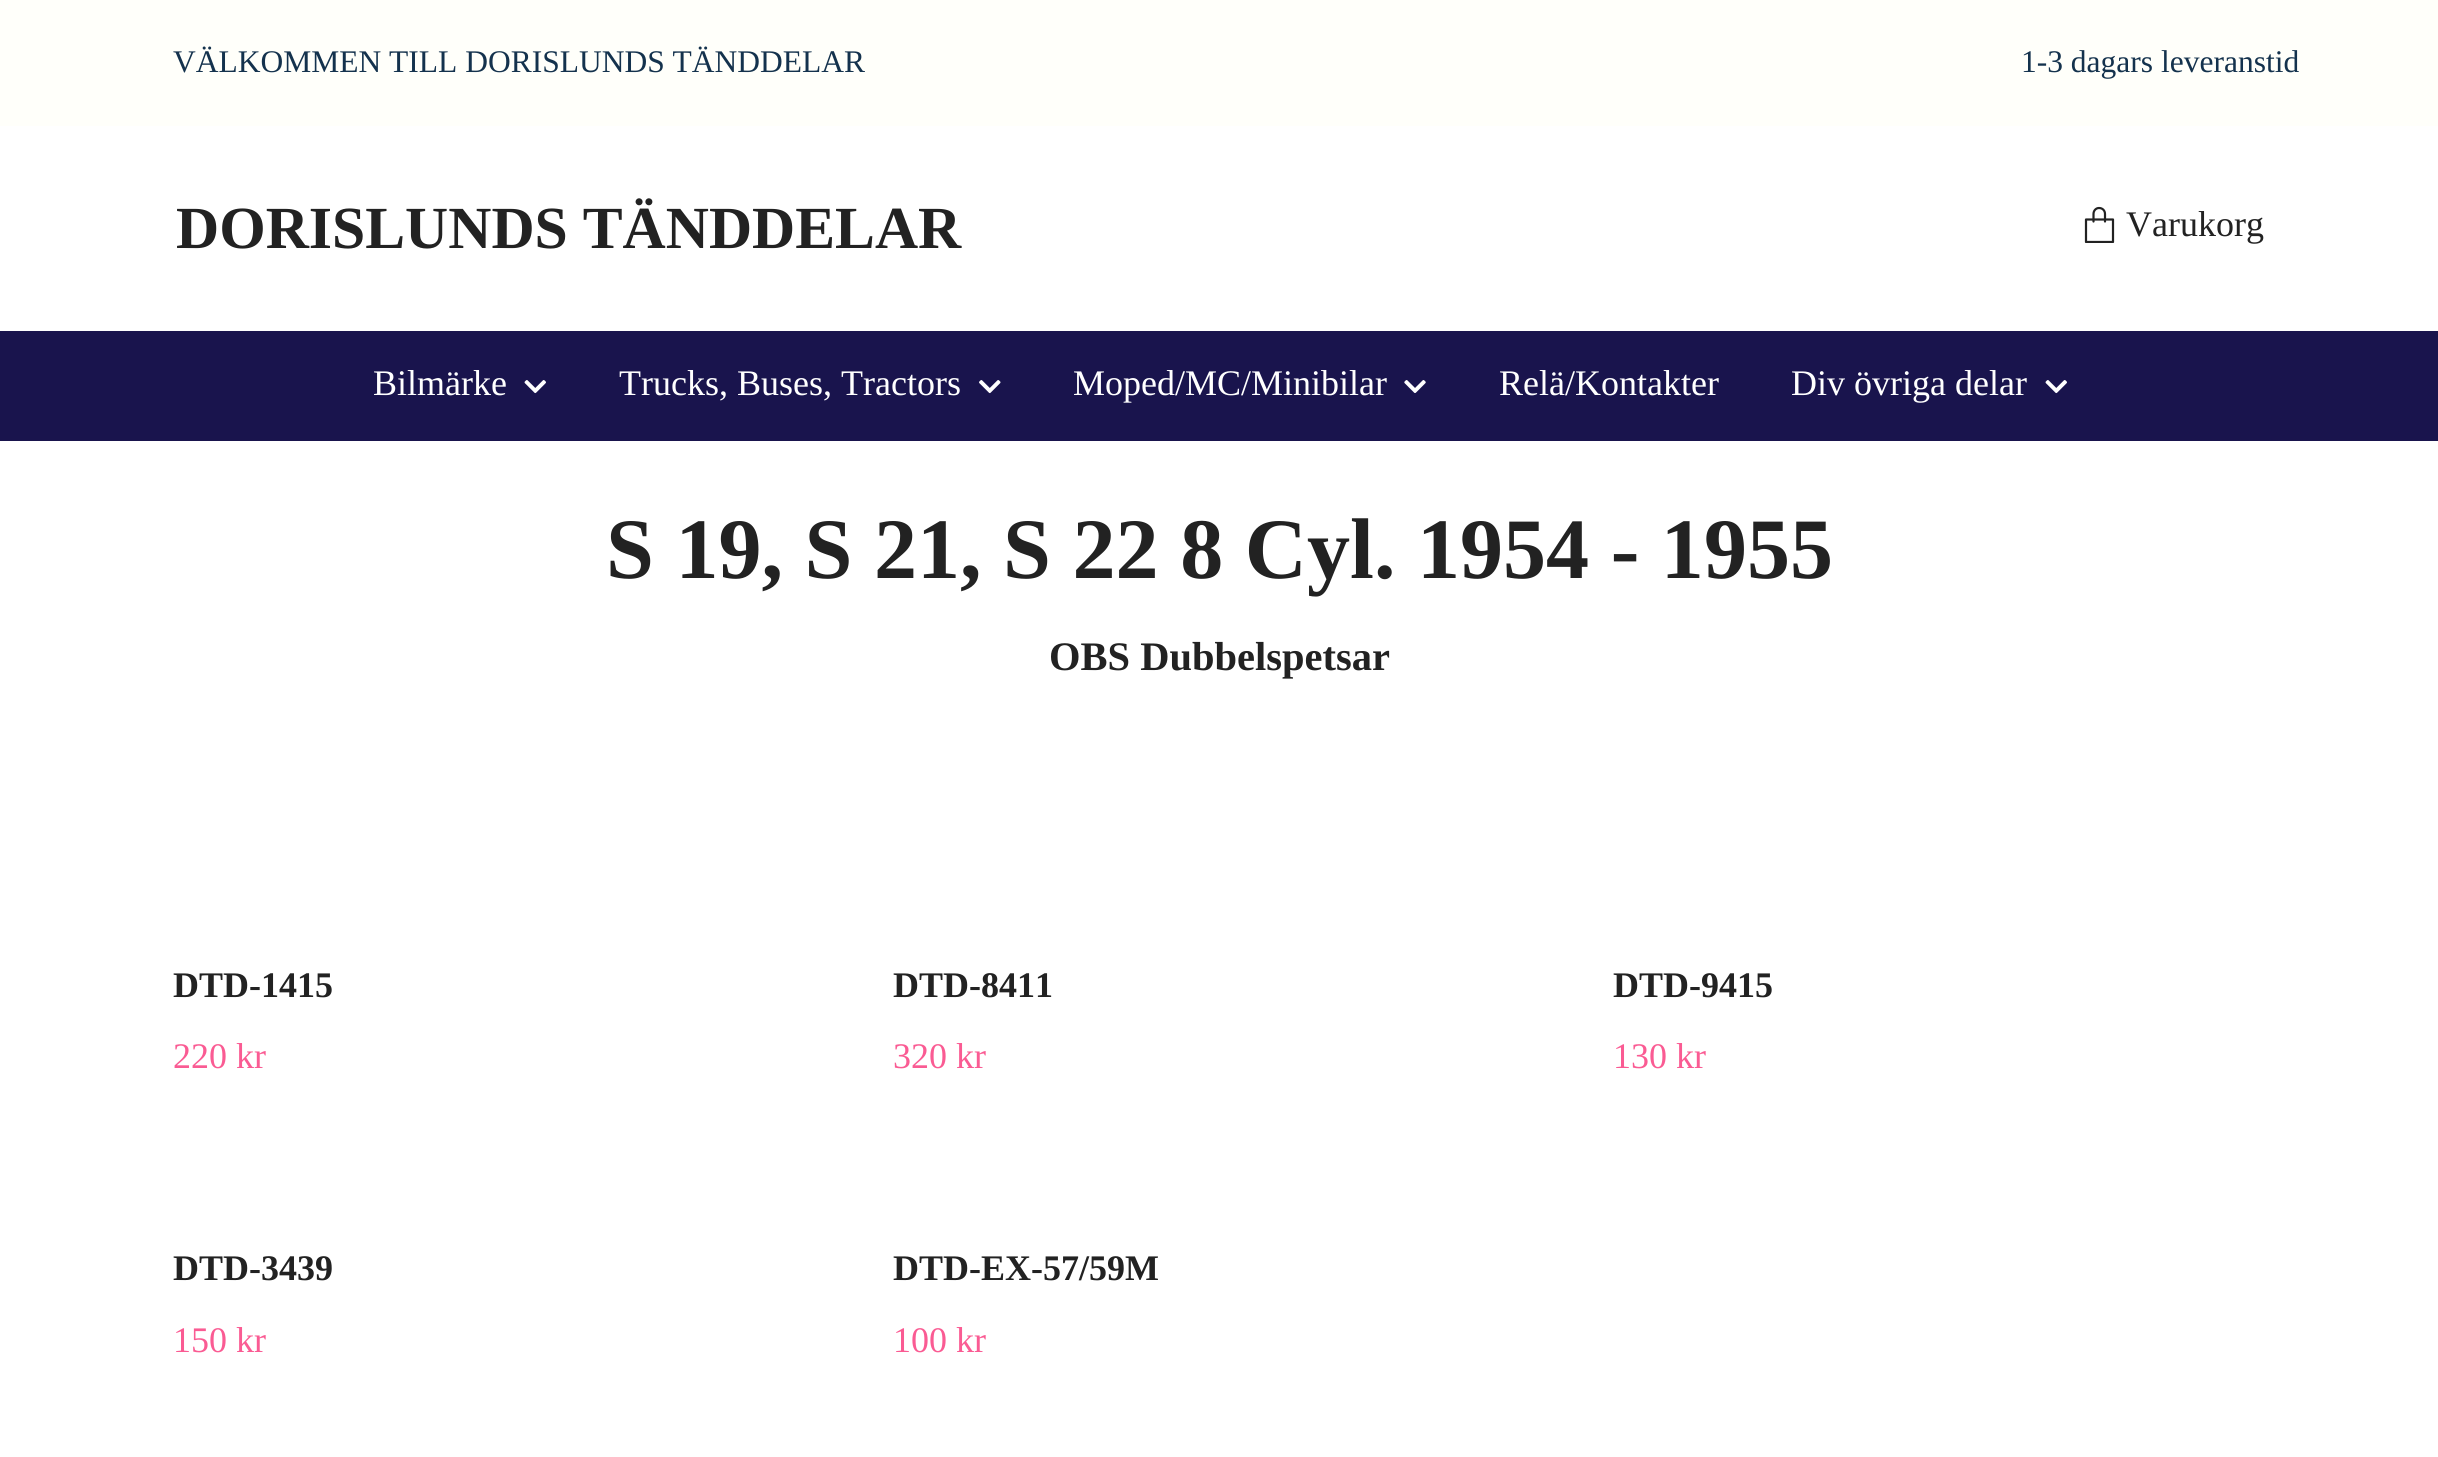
import math
import cairo

surface = cairo.ImageSurface(cairo.FORMAT_RGB24, 2438, 1457)
cr = cairo.Context(surface)
options = cairo.FontOptions()
options.set_hint_metrics(cairo.HINT_METRICS_OFF)
options.set_hint_style(cairo.HINT_STYLE_NONE)
cr.set_font_options(options)
cr.set_miter_limit(4)


def rgb(code):
    cr.set_source_rgb(*(v / 255 for v in bytes.fromhex(code[-6:])))


def image(path, x, y, w, h):
    cr.save()
    cr.set_source_surface(cairo.ImageSurface.create_from_png(path), x, y)
    cr.rectangle(x, y, w, h)
    cr.fill()
    cr.restore()


rgb("#ffffff")
cr.paint()
rgb("#fffffa")
cr.rectangle(0, 0, 2438, 126)
cr.fill()
cr.save()
cr.rectangle(2072, 207, 54, 36)
cr.clip()
cr.new_path()
cr.move_to(2086, 219.5)
cr.line_to(2113, 219.5)
cr.line_to(2113, 242)
cr.line_to(2086, 242)
cr.close_path()
rgb("#222222")
cr.set_line_width(2.2)
cr.set_line_cap(cairo.LINE_CAP_ROUND)
cr.set_line_join(cairo.LINE_JOIN_ROUND)
cr.stroke()
cr.restore()
cr.new_path()
cr.move_to(2093.5, 221.5)
cr.line_to(2093.5, 214)
cr.curve_to(2093.5, 210.5, 2096, 208, 2099, 208)
cr.curve_to(2102.5, 208, 2105, 210.5, 2105, 214)
cr.line_to(2105, 221.5)
rgb("#222222")
cr.set_line_width(2.2)
cr.set_line_cap(cairo.LINE_CAP_ROUND)
cr.set_line_join(cairo.LINE_JOIN_ROUND)
cr.stroke()
rgb("#19144d")
cr.rectangle(0, 331, 2438, 110)
cr.fill()
image("img/1.png", 524, 380, 22, 14)
image("img/2.png", 979, 380, 22, 14)
image("img/3.png", 1404, 380, 22, 13)
image("img/1.png", 2045, 380, 22, 14)
cr.select_font_face("Liberation Serif")
cr.set_font_size(31.5)
rgb("#14324d")
cr.move_to(173, 72)
cr.show_text("VÄLKOMMEN TILL DORISLUNDS TÄNDDELAR")
cr.move_to(2021, 72)
cr.show_text("1-3 dagars leveranstid")
cr.select_font_face("Liberation Serif", cairo.FONT_SLANT_NORMAL, cairo.FONT_WEIGHT_BOLD)
cr.set_font_size(59.75)
rgb("#222222")
cr.move_to(176, 248)
cr.show_text("DORISLUNDS TÄNDDELAR")
cr.select_font_face("Liberation Serif")
cr.set_font_size(36)
cr.move_to(2126, 236)
cr.show_text("Varukorg")
rgb("#ffffff")
for x, y, s in [
    (373, 395, "Bilmärke"),
    (619, 395, "Trucks, Buses, Tractors"),
    (1073, 395, "Moped/MC/Minibilar"),
    (1499, 395, "Relä/Kontakter"),
    (1791, 395, "Div övriga delar"),
]:
    cr.move_to(x, y)
    cr.show_text(s)
cr.select_font_face("Liberation Serif", cairo.FONT_SLANT_NORMAL, cairo.FONT_WEIGHT_BOLD)
cr.set_font_size(86.1)
rgb("#222222")
cr.move_to(606, 578)
cr.show_text("S 19, S 21, S 22 8 Cyl. 1954 - 1955")
cr.set_font_size(40.5)
cr.move_to(1049, 670)
cr.show_text("OBS Dubbelspetsar")
cr.set_font_size(36)
cr.move_to(173, 997)
cr.show_text("DTD-1415")
cr.select_font_face("Liberation Serif")
rgb("#fa5b93")
cr.move_to(173, 1068)
cr.show_text("220 kr")
cr.select_font_face("Liberation Serif", cairo.FONT_SLANT_NORMAL, cairo.FONT_WEIGHT_BOLD)
rgb("#222222")
cr.move_to(893, 997)
cr.show_text("DTD-8411")
cr.select_font_face("Liberation Serif")
rgb("#fa5b93")
cr.move_to(893, 1068)
cr.show_text("320 kr")
cr.select_font_face("Liberation Serif", cairo.FONT_SLANT_NORMAL, cairo.FONT_WEIGHT_BOLD)
rgb("#222222")
cr.move_to(1613, 997)
cr.show_text("DTD-9415")
cr.select_font_face("Liberation Serif")
rgb("#fa5b93")
cr.move_to(1613, 1068)
cr.show_text("130 kr")
cr.select_font_face("Liberation Serif", cairo.FONT_SLANT_NORMAL, cairo.FONT_WEIGHT_BOLD)
rgb("#222222")
cr.move_to(173, 1280)
cr.show_text("DTD-3439")
cr.select_font_face("Liberation Serif")
rgb("#fa5b93")
cr.move_to(173, 1352)
cr.show_text("150 kr")
cr.select_font_face("Liberation Serif", cairo.FONT_SLANT_NORMAL, cairo.FONT_WEIGHT_BOLD)
rgb("#222222")
cr.move_to(893, 1280)
cr.show_text("DTD-EX-57/59M")
cr.select_font_face("Liberation Serif")
rgb("#fa5b93")
cr.move_to(893, 1352)
cr.show_text("100 kr")
surface.write_to_png("page.png")
